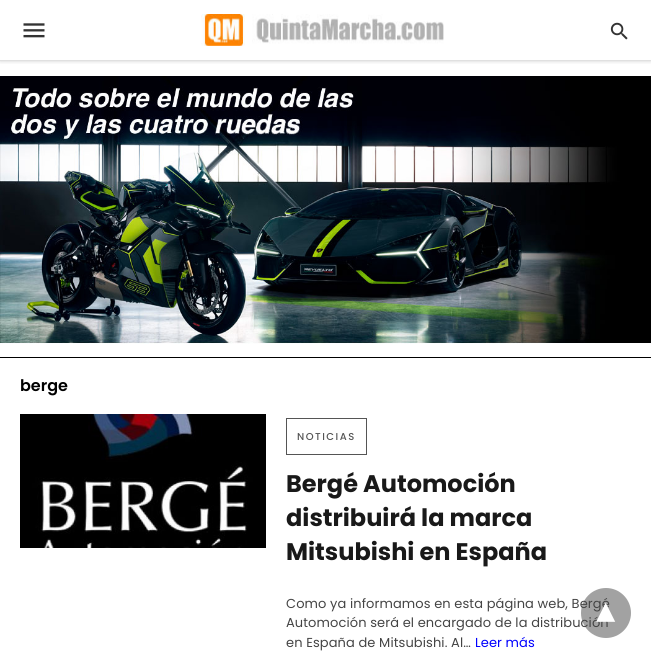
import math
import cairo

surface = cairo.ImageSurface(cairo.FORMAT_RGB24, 651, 658)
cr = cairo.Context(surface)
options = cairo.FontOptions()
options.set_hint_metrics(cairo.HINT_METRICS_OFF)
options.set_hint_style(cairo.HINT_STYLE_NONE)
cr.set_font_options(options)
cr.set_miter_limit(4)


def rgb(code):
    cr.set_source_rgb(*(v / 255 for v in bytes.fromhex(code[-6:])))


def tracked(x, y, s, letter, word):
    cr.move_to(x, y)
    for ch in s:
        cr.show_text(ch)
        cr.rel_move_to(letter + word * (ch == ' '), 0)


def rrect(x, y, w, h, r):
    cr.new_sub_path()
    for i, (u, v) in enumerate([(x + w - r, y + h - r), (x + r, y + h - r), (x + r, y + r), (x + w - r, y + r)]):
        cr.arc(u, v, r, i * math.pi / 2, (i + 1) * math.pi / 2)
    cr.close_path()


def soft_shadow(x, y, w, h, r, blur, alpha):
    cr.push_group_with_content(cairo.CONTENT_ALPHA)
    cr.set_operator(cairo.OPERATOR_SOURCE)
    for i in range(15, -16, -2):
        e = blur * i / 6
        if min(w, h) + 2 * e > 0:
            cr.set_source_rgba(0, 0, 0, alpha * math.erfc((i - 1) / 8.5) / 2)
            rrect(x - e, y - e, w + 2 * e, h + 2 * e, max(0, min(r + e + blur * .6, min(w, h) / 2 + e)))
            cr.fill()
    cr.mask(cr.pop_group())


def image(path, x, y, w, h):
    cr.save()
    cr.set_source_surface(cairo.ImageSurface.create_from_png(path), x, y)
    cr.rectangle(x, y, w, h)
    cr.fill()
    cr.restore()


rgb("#ffffff")
cr.paint()
cr.save()
cr.rectangle(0, 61, 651, 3)
cr.clip()
rgb("#000000")
soft_shadow(0, 0, 651, 61, 0, 2, 0.2)
cr.restore()
rgb("#e0e0e0")
cr.rectangle(0, 60, 651, 1)
cr.fill()
image("img/1.png", 23, 23, 22, 15)
image("img/2.png", 201, 14, 243, 32)
image("img/3.png", 610, 22, 18, 18)
image("img/4.png", 0, 76, 651, 268)
rgb("#000000")
cr.rectangle(0, 357, 651, 1)
cr.fill()
image("img/5.png", 20, 414, 246, 134)
cr.rectangle(286.5, 418.5, 80, 36)
rgb("#555555")
cr.set_line_width(1)
cr.stroke()
cr.select_font_face("Poppins SemiBold")
cr.set_font_size(16)
rgb("#000000")
cr.move_to(20, 391)
cr.show_text("berge")
cr.select_font_face("Poppins Medium")
cr.set_font_size(10)
rgb("#555555")
tracked(297, 440, "NOTICIAS", 1.5, 0)
cr.select_font_face("Poppins", cairo.FONT_SLANT_NORMAL, cairo.FONT_WEIGHT_BOLD)
cr.set_font_size(24)
rgb("#191919")
for x, y, s in [
    (286, 492, "Bergé Automoción"),
    (286, 526, "distribuirá la marca"),
    (286, 560, "Mitsubishi en España"),
]:
    cr.move_to(x, y)
    cr.show_text(s)
cr.select_font_face("Poppins")
cr.set_font_size(13)
rgb("#444444")
for x, y, s in [
    (286, 608, "Como ya informamos en esta página web, Bergé"),
    (286, 627, "Automoción será el encargado de la distribución"),
    (286, 647, "en España de Mitsubishi. Al…"),
]:
    tracked(x, y, s, 0.1, 0)
rgb("#0000ff")
tracked(475, 647, "Leer más", 0.1, 0)
cr.set_source_rgba(0.278, 0.278, 0.278, 0.5)
cr.new_path()
cr.arc(606, 613, 25, 0, 2 * math.pi)
cr.fill()
cr.select_font_face("DejaVu Sans", cairo.FONT_SLANT_NORMAL, cairo.FONT_WEIGHT_BOLD)
cr.set_font_size(35)
rgb("#ffffff")
cr.save()
cr.translate(615, 603)
cr.rotate(180 * math.pi / 180)
cr.move_to(0, 0)
cr.show_text("▾")
cr.restore()
surface.write_to_png("page.png")
